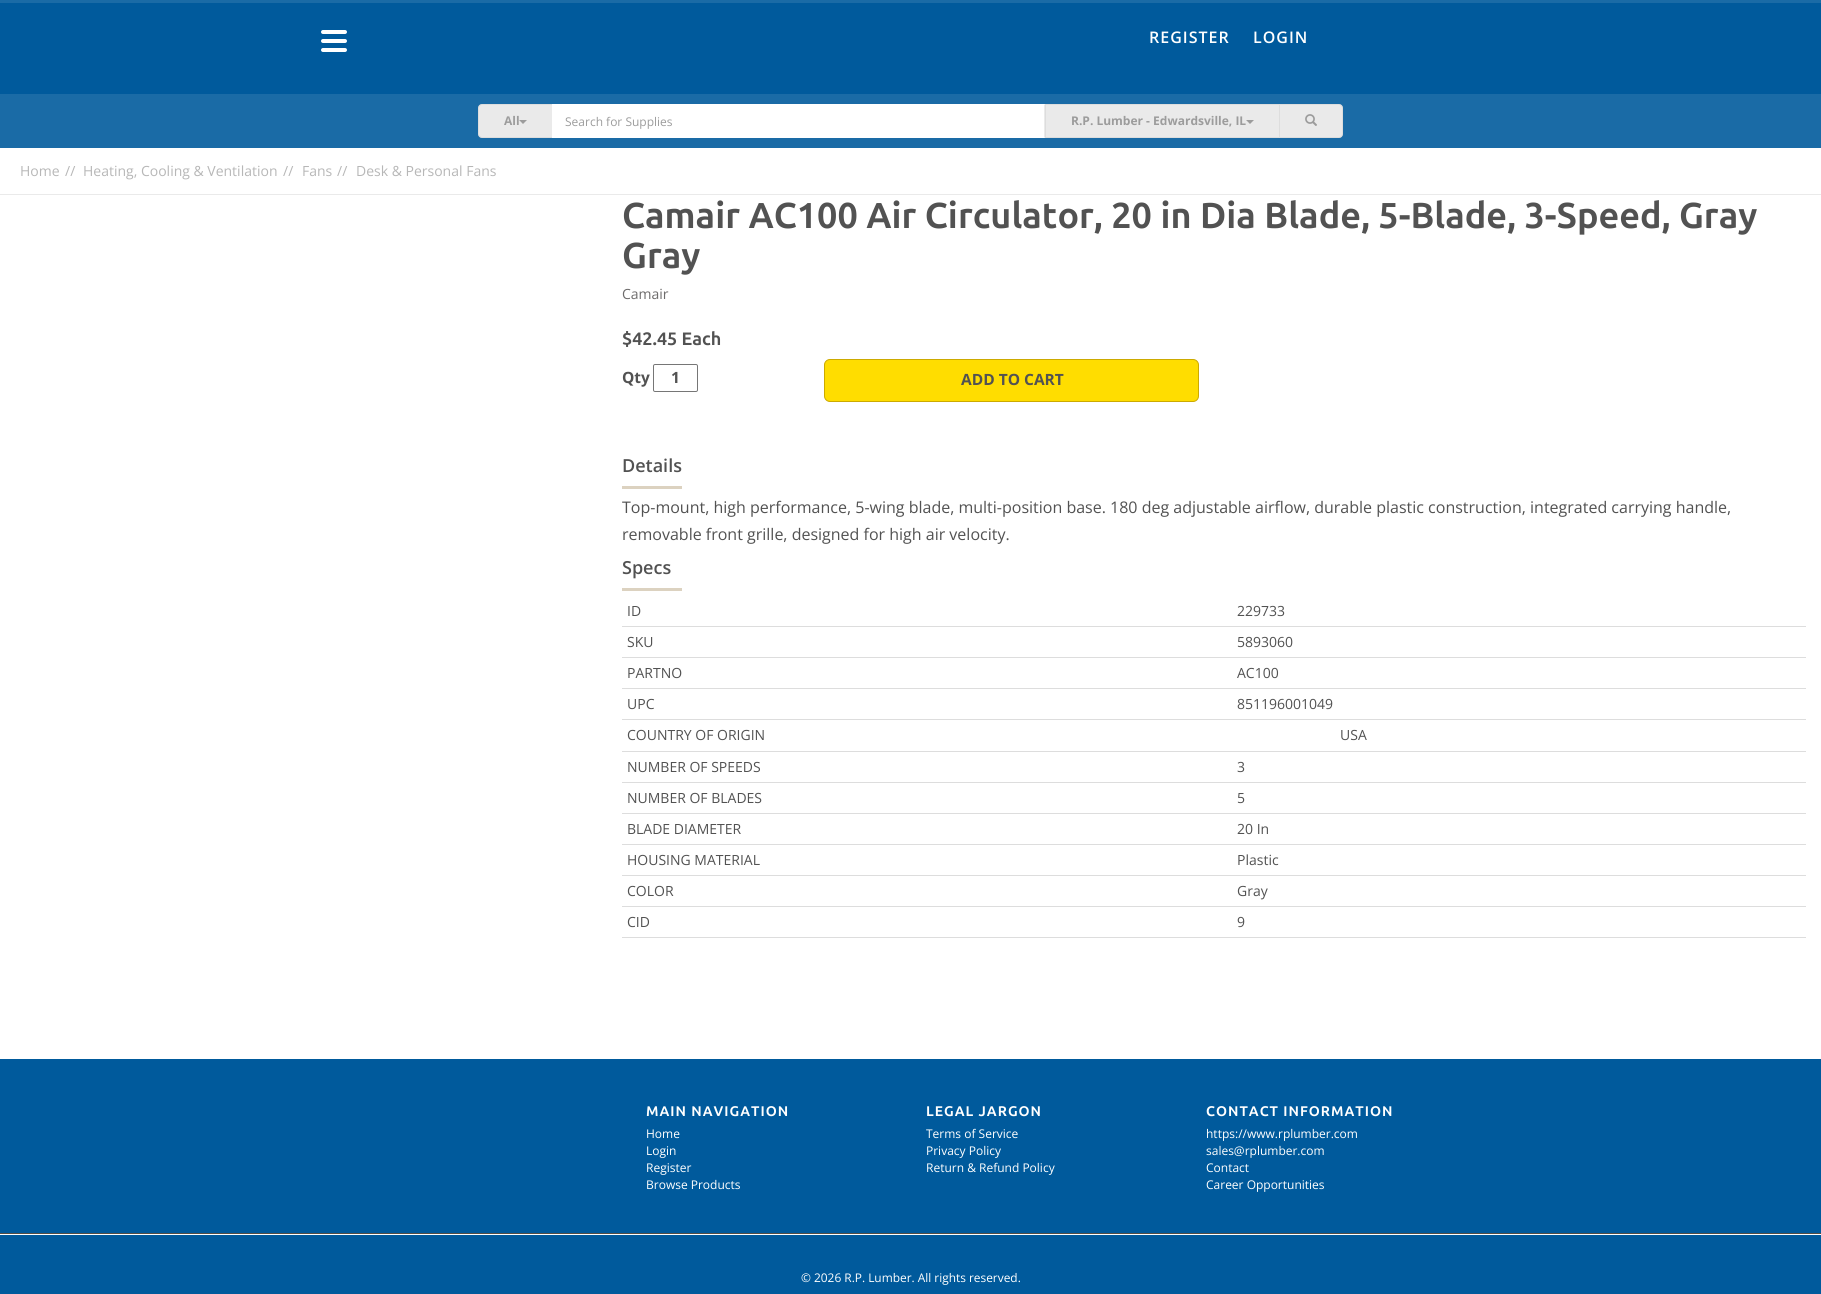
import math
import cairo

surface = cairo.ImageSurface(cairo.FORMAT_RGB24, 1821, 1294)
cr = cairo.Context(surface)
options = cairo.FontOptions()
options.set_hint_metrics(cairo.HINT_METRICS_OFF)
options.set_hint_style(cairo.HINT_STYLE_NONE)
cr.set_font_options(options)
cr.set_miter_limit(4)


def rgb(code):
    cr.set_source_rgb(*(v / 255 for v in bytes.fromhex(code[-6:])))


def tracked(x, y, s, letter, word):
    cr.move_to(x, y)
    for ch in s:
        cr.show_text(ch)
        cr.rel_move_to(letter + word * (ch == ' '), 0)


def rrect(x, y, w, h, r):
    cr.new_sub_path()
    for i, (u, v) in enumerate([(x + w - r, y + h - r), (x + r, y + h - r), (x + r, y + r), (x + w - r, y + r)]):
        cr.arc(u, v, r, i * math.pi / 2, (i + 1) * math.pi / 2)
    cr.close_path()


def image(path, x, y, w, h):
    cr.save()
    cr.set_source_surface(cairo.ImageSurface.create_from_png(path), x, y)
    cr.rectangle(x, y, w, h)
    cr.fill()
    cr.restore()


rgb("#ffffff")
cr.paint()
rgb("#005a9c")
cr.rectangle(0, 3, 1821, 91)
cr.fill()
rgb("#1a6ba6")
cr.rectangle(0, 0, 1821, 3)
cr.fill()
rgb("#ffffff")
rrect(321, 30, 26, 4, 2)
cr.fill()
rrect(321, 39, 26, 4, 2)
cr.fill()
rrect(321, 48, 26, 4, 2)
cr.fill()
rgb("#1a6ba6")
cr.rectangle(0, 94, 1821, 54)
cr.fill()
rgb("#eaeaea")
cr.new_path()
cr.move_to(482, 104.5)
cr.line_to(552.5, 104.5)
cr.line_to(552.5, 137.5)
cr.line_to(482, 137.5)
cr.curve_to(480, 137.5, 478.5, 136, 478.5, 134)
cr.line_to(478.5, 108)
cr.curve_to(478.5, 106, 480, 104.5, 482, 104.5)
cr.close_path()
cr.fill_preserve()
rgb("#dddddd")
cr.set_line_width(1)
cr.stroke()
rgb("#9c9c9c")
cr.new_path()
cr.move_to(519, 120)
cr.line_to(527, 120)
cr.line_to(523, 124)
cr.close_path()
cr.fill()
rgb("#ffffff")
cr.rectangle(552, 104, 493, 34)
cr.fill()
rgb("#eaeaea")
cr.new_path()
cr.move_to(1045, 104)
cr.line_to(1045, 138)
cr.line_to(1044, 137)
cr.line_to(1044, 105)
cr.close_path()
cr.fill()
cr.rectangle(1045.5, 104.5, 234, 33)
cr.fill_preserve()
rgb("#dddddd")
cr.stroke()
rgb("#9c9c9c")
cr.new_path()
cr.move_to(1246, 120)
cr.line_to(1254, 120)
cr.line_to(1250, 124)
cr.close_path()
cr.fill()
rgb("#eaeaea")
cr.new_path()
cr.move_to(1279.5, 104.5)
cr.line_to(1339, 104.5)
cr.curve_to(1341, 104.5, 1342.5, 106, 1342.5, 108)
cr.line_to(1342.5, 134)
cr.curve_to(1342.5, 136, 1341, 137.5, 1339, 137.5)
cr.line_to(1279.5, 137.5)
cr.close_path()
cr.fill_preserve()
rgb("#dddddd")
cr.stroke()
image("img/1.png", 1305, 114, 12, 12)
rgb("#eaeaea")
cr.rectangle(0, 194, 1821, 1)
cr.fill()
rrect(653.5, 364.5, 44, 27, 1.5)
rgb("#767676")
cr.stroke()
rgb("#ffdd00")
rrect(824.5, 359.5, 374, 42, 5.5)
cr.fill_preserve()
rgb("#ccaa00")
cr.stroke()
for x, y, w, h, color in [
    (622, 486, 60, 3, "#dcd2c0"),
    (622, 588, 60, 3, "#dcd2c0"),
    (622, 626, 1184, 1, "#dddddd"),
    (622, 657, 1184, 1, "#dddddd"),
    (622, 688, 1184, 1, "#dddddd"),
    (622, 719, 1184, 1, "#dddddd"),
    (622, 751, 1184, 1, "#dddddd"),
    (622, 782, 1184, 1, "#dddddd"),
    (622, 813, 1184, 1, "#dddddd"),
    (622, 844, 1184, 1, "#dddddd"),
    (622, 875, 1184, 1, "#dddddd"),
    (622, 906, 1184, 1, "#dddddd"),
    (622, 937, 1184, 1, "#dddddd"),
    (0, 1059, 1821, 235, "#005a9c"),
    (0, 1234, 1821, 1, "#ffffff"),
    (0, 1233, 1821, 1, "#574d43"),
]:
    rgb(color)
    cr.rectangle(x, y, w, h)
    cr.fill()
cr.select_font_face("Open Sans SemiBold")
cr.set_font_size(16)
rgb("#ffffff")
tracked(1149, 43, "REGISTER", 1, 0)
tracked(1253, 43, "LOGIN", 1, 0)
cr.select_font_face("Open Sans", cairo.FONT_SLANT_NORMAL, cairo.FONT_WEIGHT_BOLD)
cr.set_font_size(12)
rgb("#9c9c9c")
cr.move_to(504, 125)
cr.show_text("All")
cr.select_font_face("Open Sans")
cr.move_to(565, 126)
cr.show_text("Search for Supplies")
cr.select_font_face("Open Sans", cairo.FONT_SLANT_NORMAL, cairo.FONT_WEIGHT_BOLD)
cr.move_to(1071, 125)
cr.show_text("R.P. Lumber - Edwardsville, IL")
cr.select_font_face("Open Sans")
cr.set_font_size(14)
rgb("#b7b7b7")
for x, y, s in [
    (20, 176, "Home"),
    (65, 176, "//"),
    (83, 176, "Heating, Cooling & Ventilation"),
    (283, 176, "//"),
    (302, 176, "Fans"),
    (337, 176, "//"),
    (356, 176, "Desk & Personal Fans"),
]:
    cr.move_to(x, y)
    cr.show_text(s)
cr.select_font_face("Ubuntu", cairo.FONT_SLANT_NORMAL, cairo.FONT_WEIGHT_BOLD)
cr.set_font_size(36)
rgb("#525252")
cr.move_to(622, 228)
cr.show_text("Camair AC100 Air Circulator, 20 in Dia Blade, 5-Blade, 3-Speed, Gray")
cr.move_to(622, 268)
cr.show_text("Gray")
cr.select_font_face("Open Sans")
cr.set_font_size(14)
rgb("#6d6b6b")
cr.move_to(622, 299)
cr.show_text("Camair")
cr.select_font_face("Ubuntu", cairo.FONT_SLANT_NORMAL, cairo.FONT_WEIGHT_BOLD)
cr.set_font_size(18)
rgb("#525252")
cr.move_to(622, 345)
cr.show_text("$42.45 Each")
cr.select_font_face("Open Sans", cairo.FONT_SLANT_NORMAL, cairo.FONT_WEIGHT_BOLD)
cr.set_font_size(15.5)
for x, y, s in [
    (622, 383, "Qty"),
    (671, 383, "1"),
    (961, 385, "ADD TO CART"),
]:
    cr.move_to(x, y)
    cr.show_text(s)
cr.select_font_face("Open Sans SemiBold")
cr.set_font_size(18)
cr.move_to(622, 472)
cr.show_text("Details")
cr.select_font_face("Open Sans")
cr.set_font_size(16)
cr.move_to(622, 513)
cr.show_text("Top-mount, high performance, 5-wing blade, multi-position base. 180 deg adjustable airflow, durable plastic construction, integrated carrying handle,")
cr.move_to(622, 540)
cr.show_text("removable front grille, designed for high air velocity.")
cr.select_font_face("Open Sans SemiBold")
cr.set_font_size(18)
cr.move_to(622, 574)
cr.show_text("Specs")
cr.select_font_face("Open Sans")
cr.set_font_size(14)
for x, y, s in [
    (627, 616, "ID"),
    (1237, 616, "229733"),
    (627, 647, "SKU"),
    (1237, 647, "5893060"),
    (627, 678, "PARTNO"),
    (1237, 678, "AC100"),
    (627, 709, "UPC"),
    (1237, 709, "851196001049"),
    (627, 740, "COUNTRY OF ORIGIN"),
    (1340, 740, "USA"),
    (627, 772, "NUMBER OF SPEEDS"),
    (1237, 772, "3"),
    (627, 803, "NUMBER OF BLADES"),
    (1237, 803, "5"),
    (627, 834, "BLADE DIAMETER"),
    (1237, 834, "20 In"),
    (627, 865, "HOUSING MATERIAL"),
    (1237, 865, "Plastic"),
    (627, 896, "COLOR"),
    (1237, 896, "Gray"),
    (627, 927, "CID"),
    (1237, 927, "9"),
]:
    cr.move_to(x, y)
    cr.show_text(s)
cr.select_font_face("Ubuntu", cairo.FONT_SLANT_NORMAL, cairo.FONT_WEIGHT_BOLD)
rgb("#ffffff")
tracked(646, 1116, "MAIN NAVIGATION", 1, 0)
cr.select_font_face("Open Sans")
cr.set_font_size(12)
for x, y, s in [
    (646, 1138, "Home"),
    (646, 1155, "Login"),
    (646, 1172, "Register"),
    (646, 1189, "Browse Products"),
]:
    cr.move_to(x, y)
    cr.show_text(s)
cr.select_font_face("Ubuntu", cairo.FONT_SLANT_NORMAL, cairo.FONT_WEIGHT_BOLD)
cr.set_font_size(14)
tracked(926, 1116, "LEGAL JARGON", 1, 0)
cr.select_font_face("Open Sans")
cr.set_font_size(12)
for x, y, s in [
    (926, 1138, "Terms of Service"),
    (926, 1155, "Privacy Policy"),
    (926, 1172, "Return & Refund Policy"),
]:
    cr.move_to(x, y)
    cr.show_text(s)
cr.select_font_face("Ubuntu", cairo.FONT_SLANT_NORMAL, cairo.FONT_WEIGHT_BOLD)
cr.set_font_size(14)
tracked(1206, 1116, "CONTACT INFORMATION", 1, 0)
cr.select_font_face("Open Sans")
cr.set_font_size(12)
for x, y, s in [
    (1206, 1138, "https://www.rplumber.com"),
    (1206, 1155, "sales@rplumber.com"),
    (1206, 1172, "Contact"),
    (1206, 1189, "Career Opportunities"),
]:
    cr.move_to(x, y)
    cr.show_text(s)
cr.set_font_size(11.9)
cr.move_to(801, 1282)
cr.show_text("© 2026 R.P. Lumber. All rights reserved.")
surface.write_to_png("page.png")
